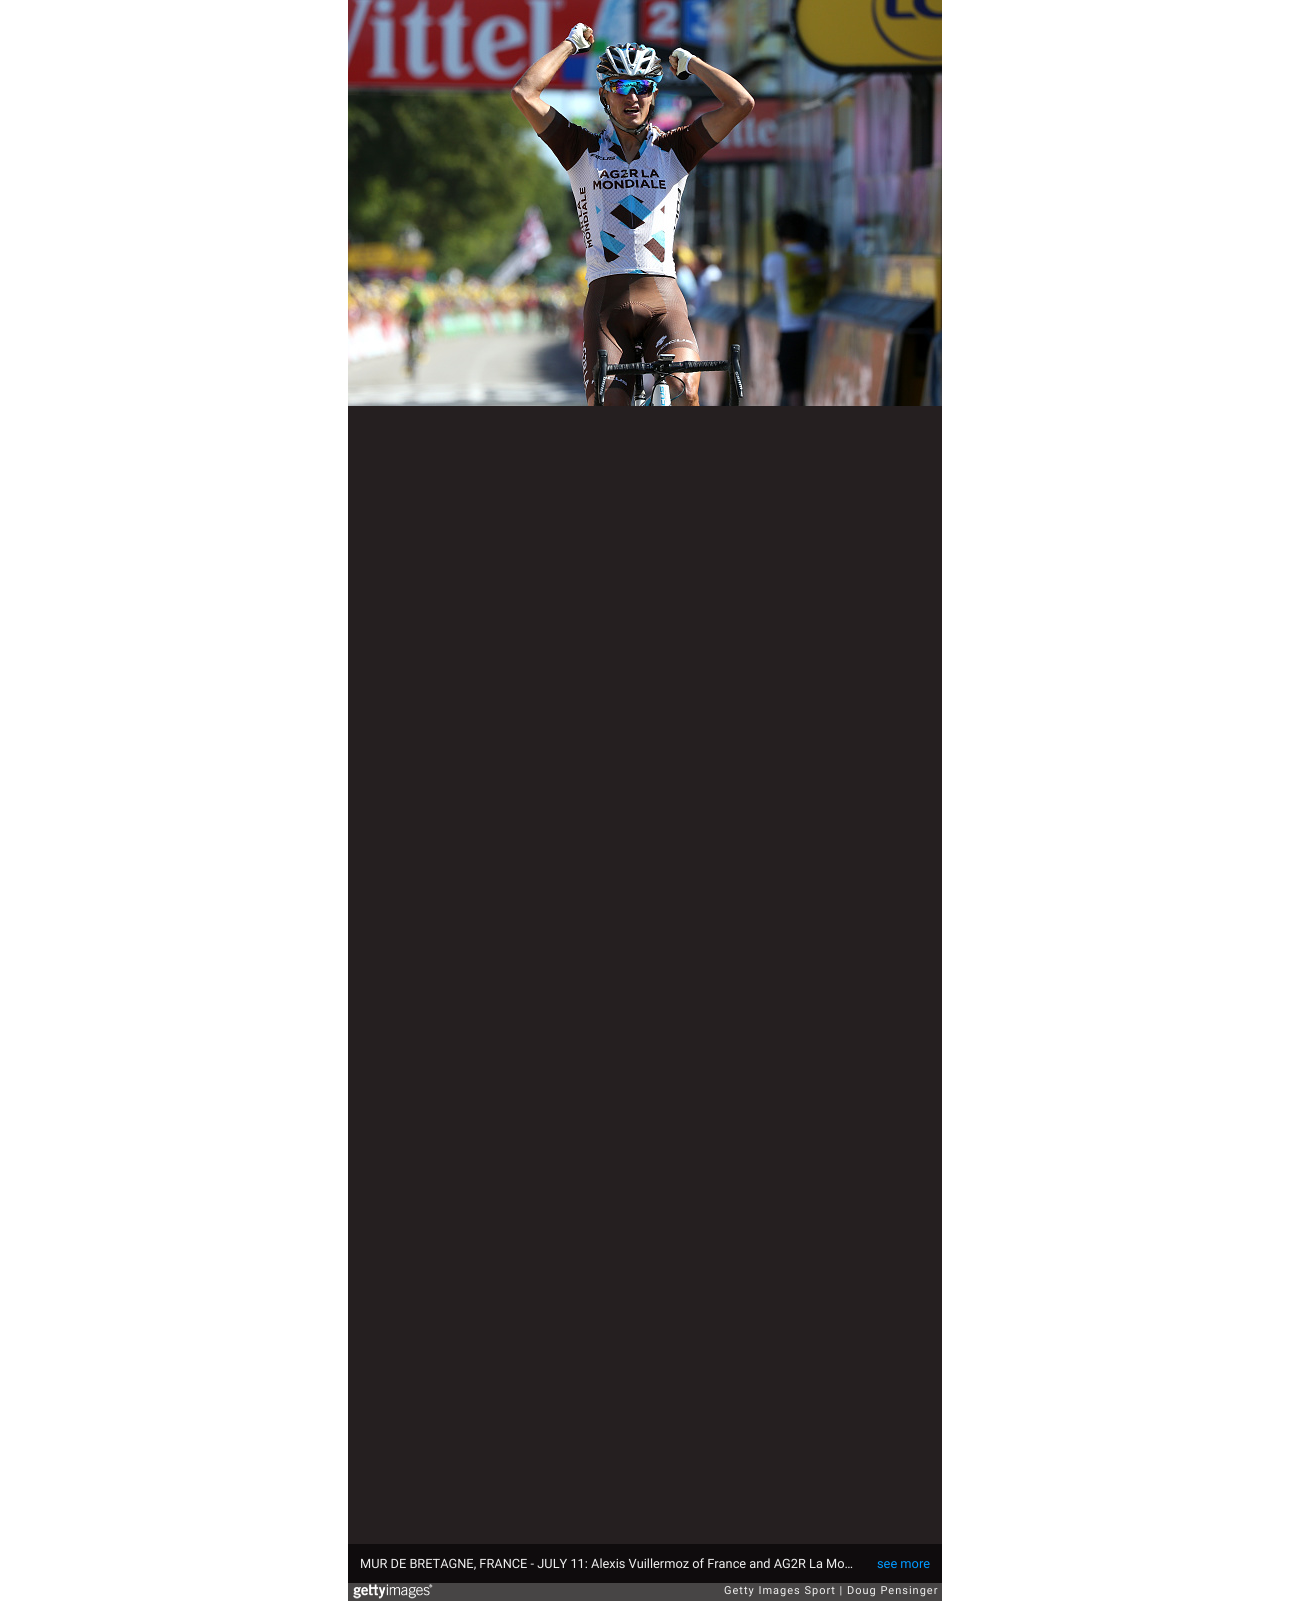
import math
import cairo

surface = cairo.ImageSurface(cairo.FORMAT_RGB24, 1290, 1601)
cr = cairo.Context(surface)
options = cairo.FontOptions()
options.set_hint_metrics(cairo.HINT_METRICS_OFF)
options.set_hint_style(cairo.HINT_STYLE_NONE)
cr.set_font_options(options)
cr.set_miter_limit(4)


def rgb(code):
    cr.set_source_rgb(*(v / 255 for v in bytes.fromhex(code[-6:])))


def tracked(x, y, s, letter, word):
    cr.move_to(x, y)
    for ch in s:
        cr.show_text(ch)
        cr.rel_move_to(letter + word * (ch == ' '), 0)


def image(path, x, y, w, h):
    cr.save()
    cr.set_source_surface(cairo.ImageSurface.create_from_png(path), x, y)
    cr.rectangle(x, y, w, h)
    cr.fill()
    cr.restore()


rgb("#ffffff")
cr.paint()
rgb("#251f20")
cr.rectangle(348, 406, 594, 1138)
cr.fill()
image("img/1.png", 348, 0, 594, 406)
rgb("#0f0c0d")
cr.rectangle(348, 1544, 594, 39)
cr.fill()
rgb("#474545")
cr.rectangle(348, 1583, 594, 18)
cr.fill()
image("img/2.png", 353, 1584, 80, 15)
cr.select_font_face("Roboto")
cr.set_font_size(12.8)
rgb("#eeeeee")
cr.move_to(360, 1568)
cr.show_text("MUR DE BRETAGNE, FRANCE - JULY 11: Alexis Vuillermoz of France and AG2R La Mo…")
rgb("#0099ff")
cr.move_to(877, 1568)
cr.show_text("see more")
cr.set_font_size(11)
rgb("#eeeeee")
tracked(724, 1594, "Getty Images Sport | Doug Pensinger", 1, 0)
surface.write_to_png("page.png")
